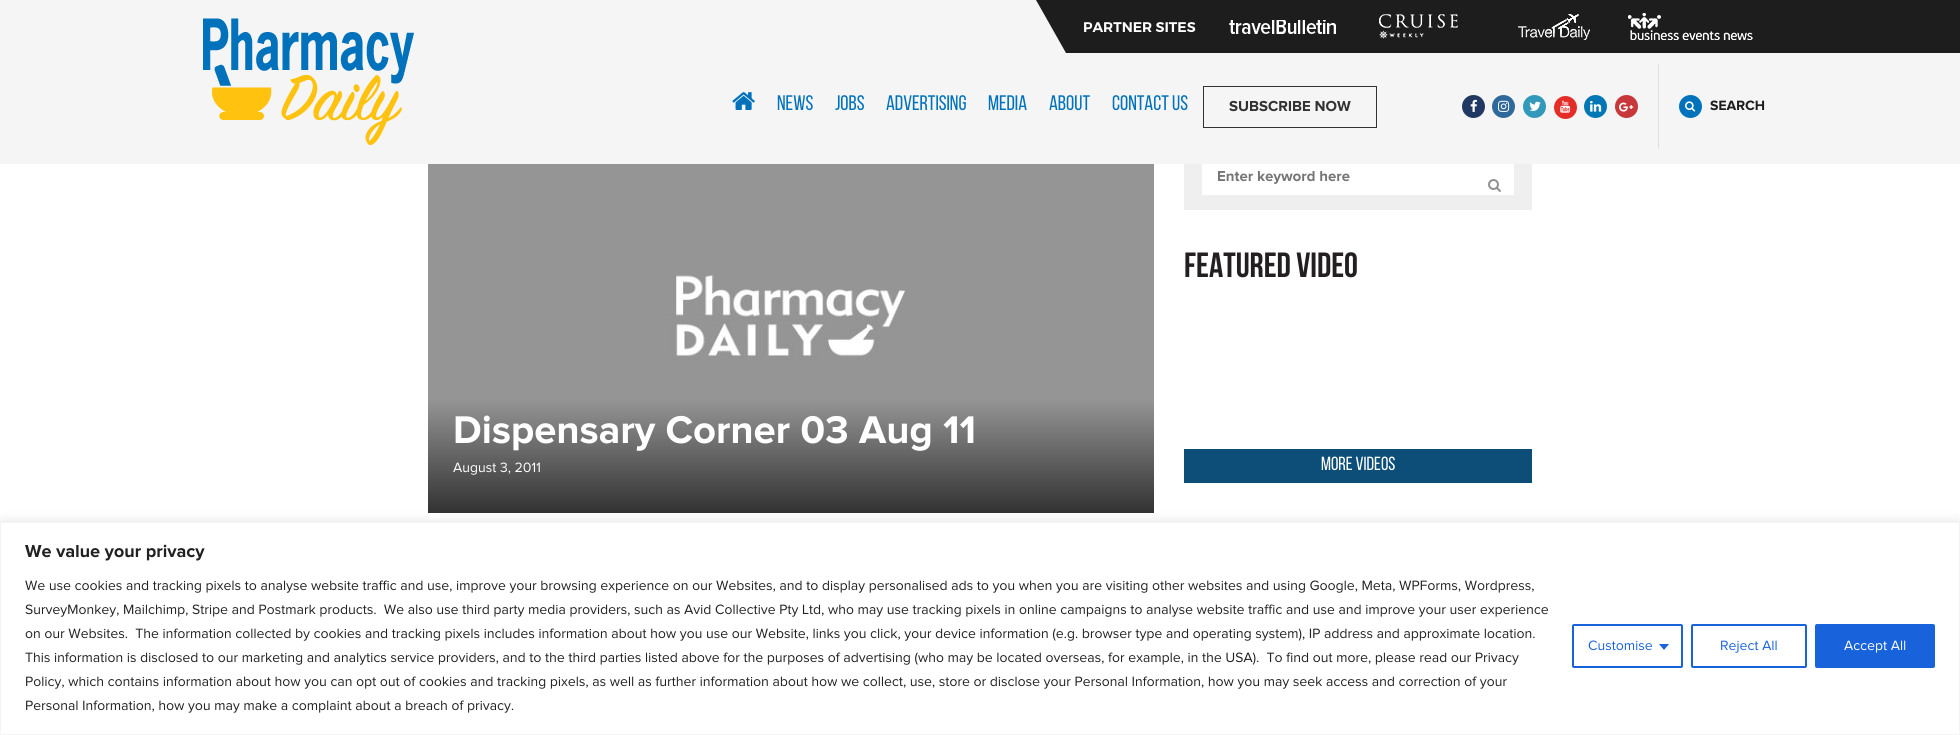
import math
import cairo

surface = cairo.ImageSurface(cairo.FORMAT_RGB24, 1960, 735)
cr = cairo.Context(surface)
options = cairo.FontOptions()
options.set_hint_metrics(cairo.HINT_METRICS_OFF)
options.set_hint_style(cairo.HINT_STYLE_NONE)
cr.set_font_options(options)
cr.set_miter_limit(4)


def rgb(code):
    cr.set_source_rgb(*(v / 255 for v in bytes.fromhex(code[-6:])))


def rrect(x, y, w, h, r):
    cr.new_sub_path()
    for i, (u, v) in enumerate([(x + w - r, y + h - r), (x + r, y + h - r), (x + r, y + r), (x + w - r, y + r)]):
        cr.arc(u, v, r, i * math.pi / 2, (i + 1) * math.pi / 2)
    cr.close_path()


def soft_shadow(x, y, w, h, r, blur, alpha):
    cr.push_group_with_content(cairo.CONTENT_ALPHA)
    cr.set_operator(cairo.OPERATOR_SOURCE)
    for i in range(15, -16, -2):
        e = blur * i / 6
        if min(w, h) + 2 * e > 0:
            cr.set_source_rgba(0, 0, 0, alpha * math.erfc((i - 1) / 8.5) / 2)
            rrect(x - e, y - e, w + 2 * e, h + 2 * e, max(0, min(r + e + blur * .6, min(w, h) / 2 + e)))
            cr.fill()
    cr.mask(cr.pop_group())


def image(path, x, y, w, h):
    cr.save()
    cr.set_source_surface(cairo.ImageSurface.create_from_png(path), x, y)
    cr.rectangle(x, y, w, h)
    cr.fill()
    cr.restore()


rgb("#ffffff")
cr.paint()
rgb("#f5f5f5")
cr.rectangle(0, 0, 1960, 164)
cr.fill()
rgb("#1d1d1d")
cr.rectangle(1066, 0, 894, 53)
cr.fill()
cr.new_path()
cr.move_to(1066, 0)
cr.line_to(1066, 53)
cr.line_to(1036, 0)
cr.close_path()
cr.fill()
image("img/1.png", 1229, 20, 107, 14)
image("img/2.png", 1379, 14, 79, 25)
image("img/3.png", 1518, 14, 72, 26)
image("img/4.png", 1628, 13, 125, 27)
image("img/5.png", 203, 18, 211, 127)
image("img/6.png", 732, 92, 23, 18)
cr.rectangle(1203.5, 86.5, 173, 41)
rgb("#323232")
cr.set_line_width(1)
cr.stroke()
image("img/7.png", 1229, 100, 122, 12)
rgb("#213863")
cr.arc(1473.5, 106.5, 11.5, 0, 2 * math.pi)
cr.fill()
image("img/8.png", 1470, 99, 7, 13)
rgb("#2f689b")
cr.arc(1503.5, 106.5, 11.5, 0, 2 * math.pi)
cr.fill()
image("img/9.png", 1498, 100, 12, 12)
rgb("#3399bb")
cr.arc(1534.5, 106.5, 11.5, 0, 2 * math.pi)
cr.fill()
image("img/10.png", 1529, 101, 12, 10)
rgb("#e52d27")
cr.arc(1565.5, 107.5, 11.5, 0, 2 * math.pi)
cr.fill()
image("img/11.png", 1560, 100, 11, 13)
rgb("#0077b5")
cr.arc(1595.5, 106.5, 11.5, 0, 2 * math.pi)
cr.fill()
image("img/12.png", 1590, 100, 12, 12)
rgb("#c8383b")
cr.arc(1626.5, 106.5, 11.5, 0, 2 * math.pi)
cr.fill()
image("img/13.png", 1619, 102, 15, 10)
rgb("#dfdfdf")
cr.rectangle(1658, 64, 1, 85)
cr.fill()
rgb("#0072bc")
cr.arc(1690.5, 106.5, 11.5, 0, 2 * math.pi)
cr.fill()
image("img/14.png", 1685, 101, 11, 11)
image("img/15.png", 1710, 100, 55, 11)
image("img/16.png", 428, 164, 726, 235)
gradient = cairo.LinearGradient(791, 399, 791, 536)
gradient.add_color_stop_rgba(0, 0.584, 0.584, 0.584, 1)
gradient.add_color_stop_rgba(1, 0.118, 0.118, 0.118, 1)
cr.set_source(gradient)
cr.rectangle(428, 399, 726, 114)
cr.fill()
image("img/17.png", 455, 415, 519, 36)
image("img/18.png", 453, 462, 87, 13)
rgb("#efefef")
cr.rectangle(1184, 164, 348, 46)
cr.fill()
rgb("#ffffff")
cr.rectangle(1202, 164, 312, 31)
cr.fill()
image("img/19.png", 1218, 171, 132, 13)
image("img/20.png", 1488, 179, 13, 13)
rgb("#0c4e78")
cr.rectangle(1184, 449, 348, 34)
cr.fill()
rgb("#acabab")
soft_shadow(0, 521, 1960, 213, 0, 5, 0.3)
rgb("#ffffff")
cr.rectangle(0.5, 522.5, 1959, 212)
cr.fill_preserve()
rgb("#f4f4f4")
cr.stroke()
image("img/21.png", 25, 544, 180, 17)
image("img/22.png", 25, 580, 1509, 13)
image("img/23.png", 25, 604, 1523, 13)
image("img/24.png", 25, 628, 1510, 13)
image("img/25.png", 25, 652, 1494, 13)
image("img/26.png", 26, 676, 1481, 13)
image("img/27.png", 26, 700, 488, 13)
rrect(1573, 625, 109, 42, 1)
rgb("#1863dc")
cr.set_line_width(2)
cr.stroke()
image("img/28.png", 1588, 640, 64, 11)
cr.new_path()
cr.move_to(1659, 644)
cr.line_to(1669, 644)
cr.line_to(1664, 650)
cr.close_path()
cr.fill()
rrect(1692, 625, 114, 42, 1)
cr.stroke()
image("img/29.png", 1721, 640, 56, 13)
rrect(1816, 625, 118, 42, 1)
cr.fill_preserve()
cr.stroke()
image("img/30.png", 1844, 640, 62, 13)
cr.select_font_face("Montserrat SemiBold")
cr.set_font_size(14)
rgb("#ffffff")
cr.move_to(1083, 32)
cr.show_text("PARTNER SITES")
cr.select_font_face("Bebas Neue")
cr.set_font_size(21)
rgb("#0072bc")
for x, y, s in [
    (777, 110, "NEWS"),
    (835, 110, "JOBS"),
    (886, 110, "ADVERTISING"),
    (988, 110, "MEDIA"),
    (1049, 110, "ABOUT"),
    (1112, 110, "CONTACT US"),
]:
    cr.move_to(x, y)
    cr.show_text(s)
cr.select_font_face("Bebas Neue", cairo.FONT_SLANT_NORMAL, cairo.FONT_WEIGHT_BOLD)
cr.set_font_size(35)
rgb("#231f20")
cr.move_to(1184, 277)
cr.show_text("Featured video")
cr.select_font_face("Bebas Neue")
cr.set_font_size(19)
rgb("#ffffff")
cr.move_to(1321, 470)
cr.show_text("MORE VIDEOS")
surface.write_to_png("page.png")
